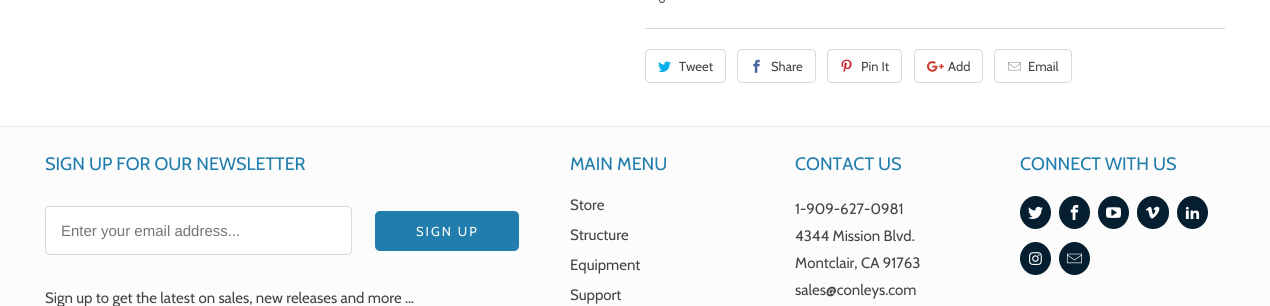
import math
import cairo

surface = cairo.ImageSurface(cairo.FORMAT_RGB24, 1270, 306)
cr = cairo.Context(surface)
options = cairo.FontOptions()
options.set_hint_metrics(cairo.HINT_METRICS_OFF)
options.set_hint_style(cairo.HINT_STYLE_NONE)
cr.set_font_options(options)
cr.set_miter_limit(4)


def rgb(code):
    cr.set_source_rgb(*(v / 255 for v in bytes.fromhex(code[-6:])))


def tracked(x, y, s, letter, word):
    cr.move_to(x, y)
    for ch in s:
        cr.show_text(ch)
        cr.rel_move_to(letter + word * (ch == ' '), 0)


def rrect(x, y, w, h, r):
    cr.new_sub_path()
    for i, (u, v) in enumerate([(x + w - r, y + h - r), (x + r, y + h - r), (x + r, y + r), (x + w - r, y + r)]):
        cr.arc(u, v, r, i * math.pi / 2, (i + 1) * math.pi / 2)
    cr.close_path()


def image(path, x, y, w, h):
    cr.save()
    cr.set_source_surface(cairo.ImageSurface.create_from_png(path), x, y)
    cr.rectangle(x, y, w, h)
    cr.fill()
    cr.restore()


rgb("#ffffff")
cr.paint()
cr.arc(662, 0, 2.5, 0, 2 * math.pi)
rgb("#444444")
cr.set_line_width(1)
cr.stroke()
rgb("#d8d8d8")
cr.rectangle(645, 28, 580, 1)
cr.fill()
rrect(645.5, 49.5, 80, 33, 4.5)
cr.stroke()
image("img/1.png", 658, 61, 13, 11)
rrect(737.5, 49.5, 78, 33, 4.5)
cr.stroke()
image("img/2.png", 753, 59, 7, 14)
rrect(827.5, 49.5, 74, 33, 4.5)
cr.stroke()
image("img/3.png", 841, 59, 11, 14)
rrect(914.5, 49.5, 68, 33, 4.5)
cr.stroke()
image("img/4.png", 927, 61, 17, 11)
rrect(994.5, 49.5, 77, 33, 4.5)
cr.stroke()
image("img/5.png", 1008, 62, 13, 9)
rgb("#fcfcfc")
cr.rectangle(0, 127, 1270, 179)
cr.fill()
rgb("#e8e8e8")
cr.rectangle(0, 126, 1270, 1)
cr.fill()
rgb("#ffffff")
rrect(45.5, 206.5, 306, 48, 4.5)
cr.fill_preserve()
rgb("#d8d8d8")
cr.stroke()
rgb("#217dad")
rrect(375, 211, 144, 40, 5)
cr.fill()
rgb("#051f30")
cr.new_path()
cr.move_to(1035.5, 196)
cr.curve_to(1044, 196, 1051, 203.5, 1051, 212.5)
cr.curve_to(1051, 221.5, 1044, 229, 1035.5, 229)
cr.curve_to(1027, 229, 1020, 221.5, 1020, 212.5)
cr.curve_to(1020, 203.5, 1027, 196, 1035.5, 196)
cr.close_path()
cr.fill()
image("img/6.png", 1028, 206, 15, 13)
cr.new_path()
cr.move_to(1074.5, 196)
cr.curve_to(1083, 196, 1090, 203.5, 1090, 212.5)
cr.curve_to(1090, 221.5, 1083, 229, 1074.5, 229)
cr.curve_to(1066, 229, 1059, 221.5, 1059, 212.5)
cr.curve_to(1059, 203.5, 1066, 196, 1074.5, 196)
cr.close_path()
cr.fill()
image("img/7.png", 1070, 204, 9, 16)
cr.new_path()
cr.move_to(1113.5, 196)
cr.curve_to(1122, 196, 1129, 203.5, 1129, 212.5)
cr.curve_to(1129, 221.5, 1122, 229, 1113.5, 229)
cr.curve_to(1105, 229, 1098, 221.5, 1098, 212.5)
cr.curve_to(1098, 203.5, 1105, 196, 1113.5, 196)
cr.close_path()
cr.fill()
image("img/8.png", 1106, 207, 15, 11)
rrect(1137, 196, 32, 33, 16)
cr.fill()
image("img/9.png", 1145, 206, 15, 13)
cr.new_path()
cr.move_to(1192.5, 196)
cr.curve_to(1201, 196, 1208, 203.5, 1208, 212.5)
cr.curve_to(1208, 221.5, 1201, 229, 1192.5, 229)
cr.curve_to(1184, 229, 1177, 221.5, 1177, 212.5)
cr.curve_to(1177, 203.5, 1184, 196, 1192.5, 196)
cr.close_path()
cr.fill()
image("img/10.png", 1185, 206, 15, 13)
cr.new_path()
cr.move_to(1035.5, 242)
cr.curve_to(1044, 242, 1051, 249.5, 1051, 258.5)
cr.curve_to(1051, 267.5, 1044, 275, 1035.5, 275)
cr.curve_to(1027, 275, 1020, 267.5, 1020, 258.5)
cr.curve_to(1020, 249.5, 1027, 242, 1035.5, 242)
cr.close_path()
cr.fill()
image("img/11.png", 1029, 252, 13, 13)
cr.new_path()
cr.move_to(1074.5, 242)
cr.curve_to(1083, 242, 1090, 249.5, 1090, 258.5)
cr.curve_to(1090, 267.5, 1083, 275, 1074.5, 275)
cr.curve_to(1066, 275, 1059, 267.5, 1059, 258.5)
cr.curve_to(1059, 249.5, 1066, 242, 1074.5, 242)
cr.close_path()
cr.fill()
image("img/12.png", 1067, 253, 15, 11)
cr.select_font_face("Cabin")
cr.set_font_size(13)
rgb("#444444")
for x, y, s in [
    (679, 71, "Tweet"),
    (771, 71, "Share"),
    (861, 71, "Pin It"),
    (948, 71, "Add"),
    (1028, 71, "Email"),
]:
    cr.move_to(x, y)
    cr.show_text(s)
cr.set_font_size(18)
rgb("#217dad")
cr.move_to(45, 170)
cr.show_text("SIGN UP FOR OUR NEWSLETTER")
cr.select_font_face("Liberation Sans")
cr.set_font_size(15)
rgb("#757575")
cr.move_to(61, 236)
cr.show_text("Enter your email address...")
cr.select_font_face("Cabin")
cr.set_font_size(13)
rgb("#ffffff")
tracked(416, 236, "SIGN UP", 2, 0)
cr.set_font_size(15)
rgb("#444444")
cr.move_to(45, 303)
cr.show_text("Sign up to get the latest on sales, new releases and more …")
cr.set_font_size(18)
rgb("#217dad")
cr.move_to(570, 170)
cr.show_text("MAIN MENU")
cr.set_font_size(15)
rgb("#444444")
for x, y, s in [
    (570, 210, "Store"),
    (570, 240, "Structure"),
    (570, 270, "Equipment"),
    (570, 300, "Support"),
]:
    cr.move_to(x, y)
    cr.show_text(s)
cr.set_font_size(18)
rgb("#217dad")
cr.move_to(795, 170)
cr.show_text("CONTACT US")
cr.set_font_size(15)
rgb("#444444")
for x, y, s in [
    (795, 214, "1-909-627-0981"),
    (795, 241, "4344 Mission Blvd."),
    (795, 268, "Montclair, CA 91763"),
    (795, 295, "sales@conleys.com"),
]:
    cr.move_to(x, y)
    cr.show_text(s)
cr.set_font_size(18)
rgb("#217dad")
cr.move_to(1020, 170)
cr.show_text("CONNECT WITH US")
surface.write_to_png("page.png")
